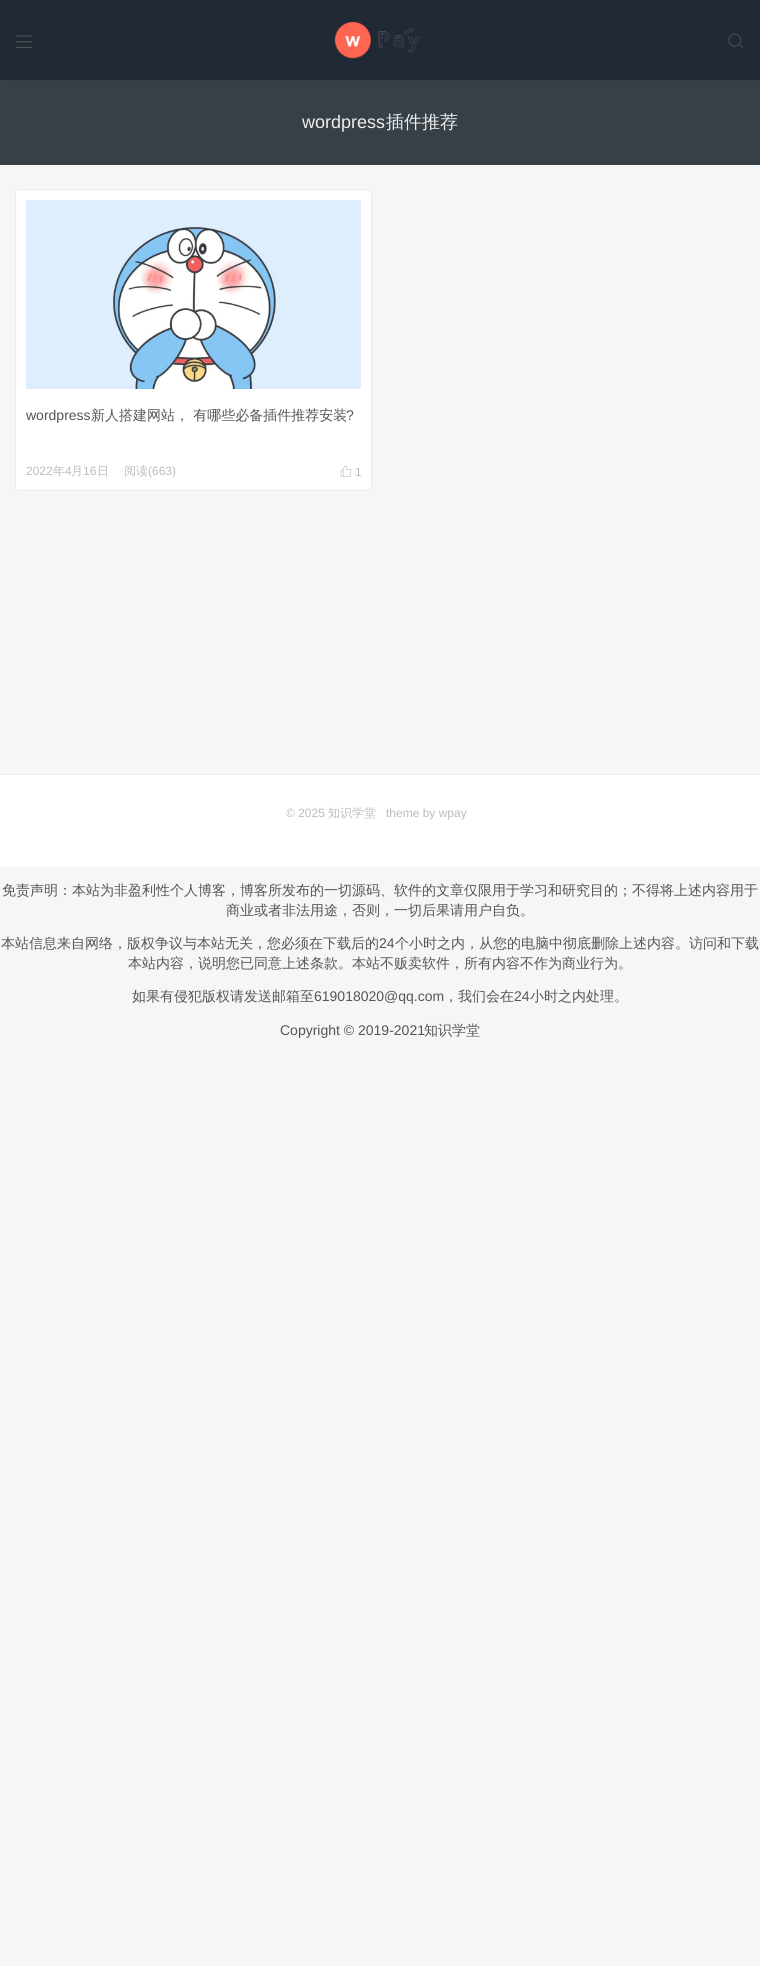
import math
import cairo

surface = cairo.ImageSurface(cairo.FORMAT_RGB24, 760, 1966)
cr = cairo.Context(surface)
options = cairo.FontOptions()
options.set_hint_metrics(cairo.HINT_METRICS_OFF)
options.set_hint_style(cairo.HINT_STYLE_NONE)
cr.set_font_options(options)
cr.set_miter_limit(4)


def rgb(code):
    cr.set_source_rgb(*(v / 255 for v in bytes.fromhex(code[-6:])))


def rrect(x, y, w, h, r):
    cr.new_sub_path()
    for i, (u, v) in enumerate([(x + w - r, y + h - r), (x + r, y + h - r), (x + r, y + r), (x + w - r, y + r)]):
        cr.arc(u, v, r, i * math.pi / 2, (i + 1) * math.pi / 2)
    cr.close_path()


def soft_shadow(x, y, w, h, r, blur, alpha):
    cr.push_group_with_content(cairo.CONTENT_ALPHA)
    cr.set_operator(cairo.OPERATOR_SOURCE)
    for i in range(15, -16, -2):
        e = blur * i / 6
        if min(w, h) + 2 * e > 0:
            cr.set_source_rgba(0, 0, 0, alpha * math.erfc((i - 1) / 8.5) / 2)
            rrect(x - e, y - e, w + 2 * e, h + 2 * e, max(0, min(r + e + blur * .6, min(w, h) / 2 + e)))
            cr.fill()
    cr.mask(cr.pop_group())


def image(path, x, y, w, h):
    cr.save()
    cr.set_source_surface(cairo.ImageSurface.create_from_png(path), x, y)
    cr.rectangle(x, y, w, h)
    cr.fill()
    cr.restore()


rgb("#f6f6f6")
cr.paint()
rgb("#384047")
cr.rectangle(0, 80, 760, 85)
cr.fill()
rgb("#000000")
soft_shadow(1, 0, 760, 80, 0, 2.5, 0.06)
rgb("#202935")
cr.rectangle(0, 0, 760, 80)
cr.fill()
image("img/1.png", 16, 35, 16, 13)
image("img/2.png", 334, 22, 86, 37)
image("img/3.png", 728, 33, 16, 16)
rgb("#ffffff")
rrect(15.5, 189.5, 356, 301, 3.5)
cr.fill_preserve()
rgb("#e4ecf3")
cr.set_line_width(1)
cr.stroke()
image("img/4.png", 26, 200, 335, 189)
image("img/5.png", 340, 465, 12, 12)
rgb("#ffffff")
cr.rectangle(0, 775, 760, 92)
cr.fill()
rgb("#eeeeee")
cr.rectangle(0, 774, 760, 1)
cr.fill()
cr.select_font_face("Liberation Sans")
cr.set_font_size(18)
cr.move_to(302, 128)
cr.show_text("wordpress")
cr.select_font_face("WenQuanYi Zen Hei Medium")
cr.move_to(386, 128)
cr.show_text("插件推荐")
cr.select_font_face("Liberation Sans")
cr.set_font_size(14)
rgb("#555555")
cr.move_to(26, 420)
cr.show_text("wordpress")
cr.select_font_face("WenQuanYi Zen Hei Medium")
cr.move_to(91, 420)
cr.show_text("新人搭建网站， 有哪些必备插件推荐安装")
cr.select_font_face("Liberation Sans")
cr.move_to(346, 420)
cr.show_text("?")
cr.set_font_size(12)
rgb("#bbbbbb")
cr.move_to(26, 475)
cr.show_text("2022")
cr.select_font_face("WenQuanYi Zen Hei Medium")
cr.move_to(53, 475)
cr.show_text("年")
cr.select_font_face("Liberation Sans")
cr.move_to(65, 475)
cr.show_text("4")
cr.select_font_face("WenQuanYi Zen Hei Medium")
cr.move_to(71, 475)
cr.show_text("月")
cr.select_font_face("Liberation Sans")
cr.move_to(83, 475)
cr.show_text("16")
cr.select_font_face("WenQuanYi Zen Hei Medium")
cr.move_to(97, 475)
cr.show_text("日")
cr.move_to(124, 475)
cr.show_text("阅读")
cr.select_font_face("Liberation Sans")
for x, y, s in [
    (148, 475, "(663)"),
    (355, 476, "1"),
    (286, 817, "© 2025"),
]:
    cr.move_to(x, y)
    cr.show_text(s)
cr.select_font_face("WenQuanYi Zen Hei Medium")
cr.move_to(328, 817)
cr.show_text("知识学堂")
cr.select_font_face("Liberation Sans")
cr.move_to(386, 817)
cr.show_text("theme by wpay")
cr.select_font_face("WenQuanYi Zen Hei Medium")
cr.set_font_size(14)
rgb("#555555")
for x, y, s in [
    (2, 895, "免责声明：本站为非盈利性个人博客，博客所发布的一切源码、软件的文章仅限用于学习和研究目的；不得将上述内容用于"),
    (226, 915, "商业或者非法用途，否则，一切后果请用户自负。"),
    (1, 948, "本站信息来自网络，版权争议与本站无关，您必须在下载后的"),
]:
    cr.move_to(x, y)
    cr.show_text(s)
cr.select_font_face("Liberation Sans")
cr.move_to(379, 948)
cr.show_text("24")
cr.select_font_face("WenQuanYi Zen Hei Medium")
for x, y, s in [
    (395, 948, "个小时之内，从您的电脑中彻底删除上述内容。访问和下载"),
    (128, 968, "本站内容，说明您已同意上述条款。本站不贩卖软件，所有内容不作为商业行为。"),
    (132, 1001, "如果有侵犯版权请发送邮箱至"),
]:
    cr.move_to(x, y)
    cr.show_text(s)
cr.select_font_face("Liberation Sans")
cr.move_to(314, 1001)
cr.show_text("619018020@qq.com")
cr.select_font_face("WenQuanYi Zen Hei Medium")
cr.move_to(444, 1001)
cr.show_text("，我们会在")
cr.select_font_face("Liberation Sans")
cr.move_to(514, 1001)
cr.show_text("24")
cr.select_font_face("WenQuanYi Zen Hei Medium")
cr.move_to(530, 1001)
cr.show_text("小时之内处理。")
cr.select_font_face("Liberation Sans")
cr.move_to(280, 1035)
cr.show_text("Copyright © 2019-2021")
cr.select_font_face("WenQuanYi Zen Hei Medium")
cr.move_to(424, 1035)
cr.show_text("知识学堂")
surface.write_to_png("page.png")
